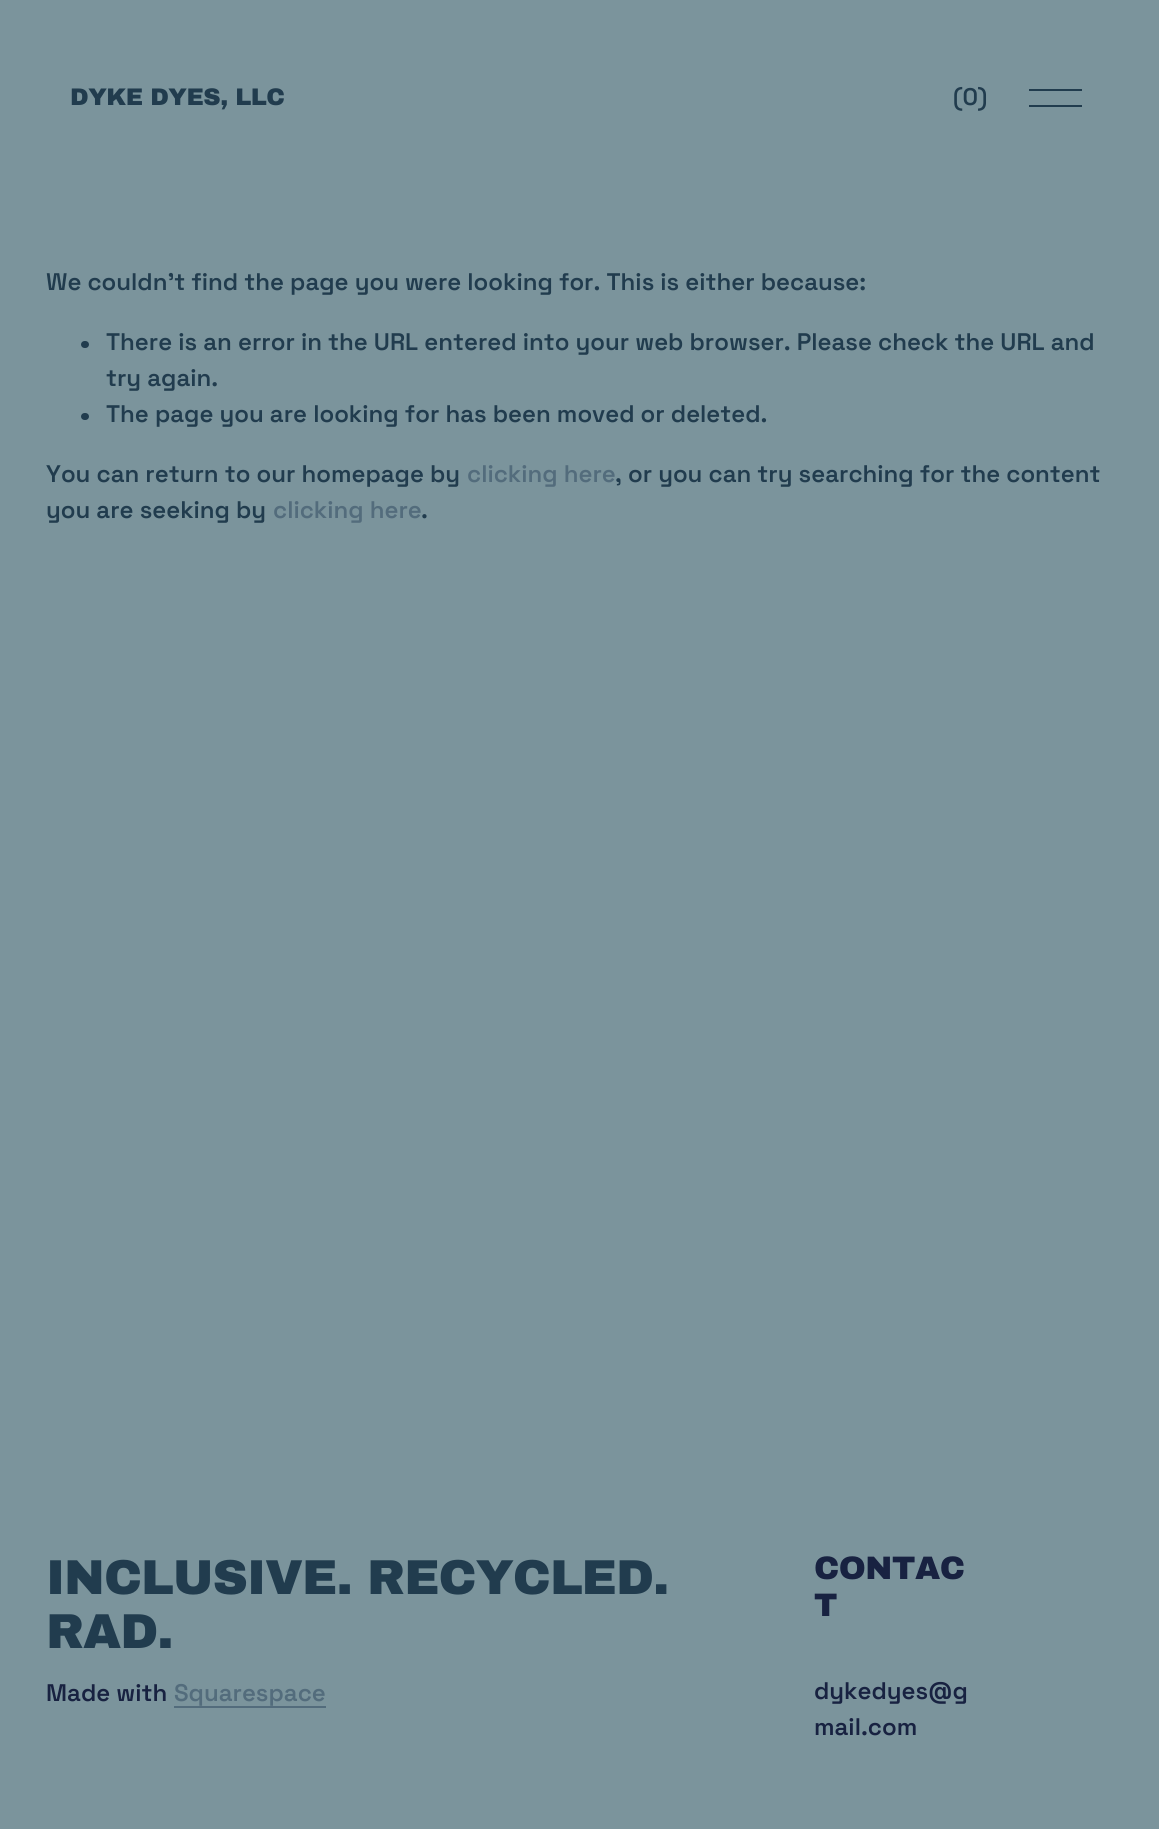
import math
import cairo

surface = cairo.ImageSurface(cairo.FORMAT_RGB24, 1159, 1829)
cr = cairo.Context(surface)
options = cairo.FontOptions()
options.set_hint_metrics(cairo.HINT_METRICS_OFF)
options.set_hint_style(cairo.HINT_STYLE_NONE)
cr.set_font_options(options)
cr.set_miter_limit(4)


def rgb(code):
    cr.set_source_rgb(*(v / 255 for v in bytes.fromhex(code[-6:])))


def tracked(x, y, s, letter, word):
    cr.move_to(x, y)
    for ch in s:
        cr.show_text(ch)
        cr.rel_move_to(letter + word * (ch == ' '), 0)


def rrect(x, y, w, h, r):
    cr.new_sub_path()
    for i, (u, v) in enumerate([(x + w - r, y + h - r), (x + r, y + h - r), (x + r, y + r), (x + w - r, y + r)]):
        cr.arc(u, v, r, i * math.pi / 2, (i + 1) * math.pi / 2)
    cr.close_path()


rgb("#7b949c")
cr.paint()
rgb("#213c4e")
cr.rectangle(1029, 89, 53, 2)
cr.fill()
cr.rectangle(1029, 105, 53, 2)
cr.fill()
rrect(81, 341, 8, 7, 3.5)
cr.fill()
rrect(81, 413, 8, 7, 3.5)
cr.fill()
rgb("#536c7c")
cr.rectangle(174, 1706, 152, 2)
cr.fill()
cr.select_font_face("Archivo Black Black")
cr.set_font_size(24)
rgb("#213c4e")
tracked(70, 105, "DYKE DYES, LLC", -0.5, 0)
cr.select_font_face("Space Grotesk SemiBold")
for x, y, s in [
    (953, 105, "(0)"),
    (46, 290, "We couldn't find the page you were looking for. This is either because:"),
    (106, 350, "There is an error in the URL entered into your web browser. Please check the URL and"),
    (106, 386, "try again."),
    (106, 422, "The page you are looking for has been moved or deleted."),
    (46, 482, "You can return to our homepage by"),
]:
    cr.move_to(x, y)
    cr.show_text(s)
rgb("#536c7c")
cr.move_to(467, 482)
cr.show_text("clicking here")
rgb("#213c4e")
cr.move_to(615, 482)
cr.show_text(", or you can try searching for the content")
cr.move_to(46, 518)
cr.show_text("you are seeking by")
rgb("#536c7c")
cr.move_to(273, 518)
cr.show_text("clicking here")
rgb("#213c4e")
cr.move_to(421, 518)
cr.show_text(".")
cr.select_font_face("Archivo Black Black")
cr.set_font_size(49)
tracked(46, 1594, "INCLUSIVE. RECYCLED.", -1, 0)
tracked(46, 1648, "RAD.", -1, 0)
cr.set_font_size(32.5)
rgb("#182241")
tracked(814, 1579, "CONTAC", -0.5, 0)
tracked(814, 1616, "T", -0.5, 0)
cr.select_font_face("Space Grotesk SemiBold")
cr.set_font_size(24)
for x, y, s in [
    (814, 1699, "dykedyes@g"),
    (814, 1735, "mail.com"),
    (46, 1701, "Made with"),
]:
    cr.move_to(x, y)
    cr.show_text(s)
rgb("#536c7c")
cr.move_to(174, 1701)
cr.show_text("Squarespace")
surface.write_to_png("page.png")
